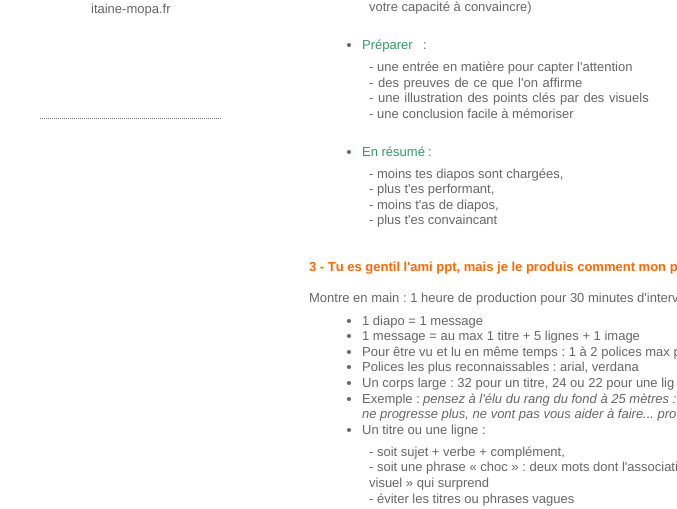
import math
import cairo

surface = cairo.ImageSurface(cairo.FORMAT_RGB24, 677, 509)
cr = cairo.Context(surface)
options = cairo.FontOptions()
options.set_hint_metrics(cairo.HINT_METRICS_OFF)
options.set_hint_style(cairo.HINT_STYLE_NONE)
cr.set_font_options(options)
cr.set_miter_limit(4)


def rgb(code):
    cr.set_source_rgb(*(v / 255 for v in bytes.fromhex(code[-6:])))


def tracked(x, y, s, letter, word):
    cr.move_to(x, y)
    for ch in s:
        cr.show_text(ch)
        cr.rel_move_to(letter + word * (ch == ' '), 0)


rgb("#ffffff")
cr.paint()
cr.new_path()
cr.move_to(40, 118.5)
cr.line_to(221, 118.5)
rgb("#777777")
cr.set_line_width(1)
cr.set_dash([1, 1])
cr.stroke()
rgb("#666666")
cr.arc(349, 45, 2, 0, 2 * math.pi)
cr.fill()
cr.arc(349, 152, 2, 0, 2 * math.pi)
cr.fill()
cr.arc(349, 321, 2, 0, 2 * math.pi)
cr.fill()
cr.arc(349, 336, 2, 0, 2 * math.pi)
cr.fill()
cr.arc(349, 352, 2, 0, 2 * math.pi)
cr.fill()
cr.arc(349, 367, 2, 0, 2 * math.pi)
cr.fill()
cr.arc(349, 383, 2, 0, 2 * math.pi)
cr.fill()
cr.arc(349, 399, 2, 0, 2 * math.pi)
cr.fill()
cr.arc(349, 430, 2, 0, 2 * math.pi)
cr.fill()
cr.select_font_face("Liberation Sans")
cr.set_font_size(13)
cr.move_to(91, 13)
cr.show_text("itaine-mopa.fr")
cr.move_to(369, 11)
cr.show_text("votre capacité à convaincre)")
rgb("#339966")
cr.move_to(362, 49)
cr.show_text("Préparer")
rgb("#666666")
cr.move_to(423, 49)
cr.show_text(":")
cr.move_to(369, 71)
cr.show_text("- une entrée en matière pour capter l'attention")
tracked(369, 87, "- des preuves de ce que l'on affirme", 0, 1)
tracked(369, 102, "- une illustration des points clés par des visuels", 0, 1)
cr.move_to(369, 118)
cr.show_text("- une conclusion facile à mémoriser")
rgb("#339966")
cr.move_to(362, 156)
cr.show_text("En résumé")
rgb("#666666")
for x, y, s in [
    (428, 156, ":"),
    (369, 178, "- moins tes diapos sont chargées,"),
    (369, 193, "- plus t'es performant,"),
    (369, 209, "- moins t'as de diapos,"),
    (369, 224, "- plus t'es convaincant"),
]:
    cr.move_to(x, y)
    cr.show_text(s)
cr.select_font_face("Liberation Sans", cairo.FONT_SLANT_NORMAL, cairo.FONT_WEIGHT_BOLD)
rgb("#ff6600")
cr.move_to(309, 271)
cr.show_text("3 - Tu es gentil l'ami ppt, mais je le produis comment mon p")
cr.select_font_face("Liberation Sans")
rgb("#666666")
for x, y, s in [
    (309, 302, "Montre en main : 1 heure de production pour 30 minutes d'interv"),
    (362, 325, "1 diapo = 1 message"),
    (362, 340, "1 message = au max 1 titre + 5 lignes + 1 image"),
    (362, 356, "Pour être vu et lu en même temps : 1 à 2 polices max p"),
    (362, 371, "Polices les plus reconnaissables : arial, verdana"),
    (362, 387, "Un corps large : 32 pour un titre, 24 ou 22 pour une lig"),
    (362, 403, "Exemple :"),
]:
    cr.move_to(x, y)
    cr.show_text(s)
cr.select_font_face("Liberation Sans", cairo.FONT_SLANT_ITALIC)
cr.move_to(423, 403)
cr.show_text("pensez à l'élu du rang du fond à 25 mètres :")
cr.move_to(362, 418)
cr.show_text("ne progresse plus, ne vont pas vous aider à faire... pro")
cr.select_font_face("Liberation Sans")
for x, y, s in [
    (362, 434, "Un titre ou une ligne :"),
    (369, 456, "- soit sujet + verbe + complément,"),
    (369, 471, "- soit une phrase « choc » : deux mots dont l'associati"),
    (369, 487, "visuel » qui surprend"),
    (369, 503, "- éviter les titres ou phrases vagues"),
]:
    cr.move_to(x, y)
    cr.show_text(s)
surface.write_to_png("page.png")
